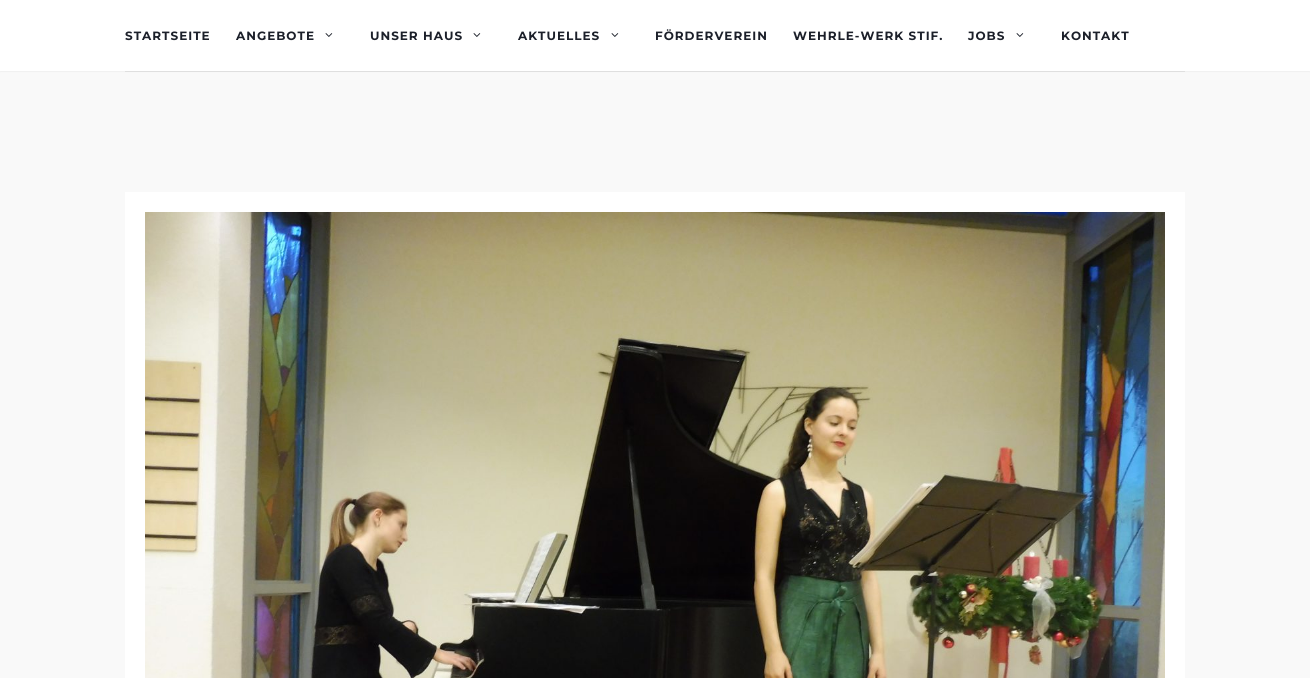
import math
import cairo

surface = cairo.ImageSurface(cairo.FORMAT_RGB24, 1310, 678)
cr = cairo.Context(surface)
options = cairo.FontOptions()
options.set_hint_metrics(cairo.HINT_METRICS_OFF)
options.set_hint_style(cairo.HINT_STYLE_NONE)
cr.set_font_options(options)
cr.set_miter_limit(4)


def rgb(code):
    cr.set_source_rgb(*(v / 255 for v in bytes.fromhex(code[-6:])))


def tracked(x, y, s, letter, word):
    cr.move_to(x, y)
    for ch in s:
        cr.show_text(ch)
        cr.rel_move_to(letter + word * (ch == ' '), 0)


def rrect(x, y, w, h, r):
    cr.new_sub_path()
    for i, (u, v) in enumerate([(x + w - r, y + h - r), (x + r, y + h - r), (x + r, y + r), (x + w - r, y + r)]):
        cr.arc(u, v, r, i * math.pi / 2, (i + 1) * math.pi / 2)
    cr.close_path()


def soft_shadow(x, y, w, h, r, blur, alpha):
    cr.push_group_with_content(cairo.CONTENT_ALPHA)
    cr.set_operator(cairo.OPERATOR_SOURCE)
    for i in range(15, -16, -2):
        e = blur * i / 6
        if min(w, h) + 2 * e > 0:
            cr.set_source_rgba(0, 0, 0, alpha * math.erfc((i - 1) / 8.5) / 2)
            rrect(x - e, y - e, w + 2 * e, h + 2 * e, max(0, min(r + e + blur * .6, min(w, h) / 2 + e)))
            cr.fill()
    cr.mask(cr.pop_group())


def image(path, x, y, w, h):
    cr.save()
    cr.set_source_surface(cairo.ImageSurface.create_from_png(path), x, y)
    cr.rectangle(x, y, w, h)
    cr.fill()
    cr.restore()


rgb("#f9f9f9")
cr.paint()
rgb("#dddddd")
cr.rectangle(125, 71, 1060, 1)
cr.fill()
rgb("#e3e3e3")
soft_shadow(0, 0, 1310, 71, 0, 1, 1)
rgb("#ffffff")
cr.rectangle(0, 0, 1310, 71)
cr.fill()
image("img/1.png", 325, 33, 8, 4)
image("img/1.png", 473, 33, 8, 4)
image("img/1.png", 611, 33, 8, 4)
image("img/1.png", 1016, 33, 8, 4)
cr.rectangle(125, 192, 1060, 486)
cr.fill()
image("img/2.png", 145, 212, 1020, 466)
cr.select_font_face("Montserrat Thin")
cr.set_font_size(12)
rgb("#1c202a")
for x, y, s in [
    (125, 40, "STARTSEITE"),
    (236, 40, "ANGEBOTE"),
    (370, 40, "UNSER HAUS"),
    (518, 40, "AKTUELLES"),
    (655, 40, "FÖRDERVEREIN"),
    (793, 40, "WEHRLE-WERK STIF."),
    (968, 40, "JOBS"),
    (1061, 40, "KONTAKT"),
]:
    tracked(x, y, s, 1, 0)
surface.write_to_png("page.png")
